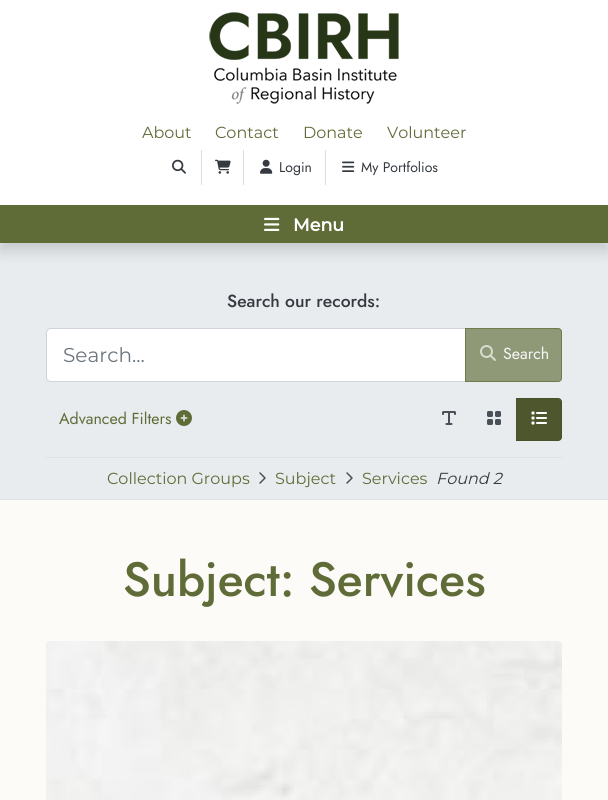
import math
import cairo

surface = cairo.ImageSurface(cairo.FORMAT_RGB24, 608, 800)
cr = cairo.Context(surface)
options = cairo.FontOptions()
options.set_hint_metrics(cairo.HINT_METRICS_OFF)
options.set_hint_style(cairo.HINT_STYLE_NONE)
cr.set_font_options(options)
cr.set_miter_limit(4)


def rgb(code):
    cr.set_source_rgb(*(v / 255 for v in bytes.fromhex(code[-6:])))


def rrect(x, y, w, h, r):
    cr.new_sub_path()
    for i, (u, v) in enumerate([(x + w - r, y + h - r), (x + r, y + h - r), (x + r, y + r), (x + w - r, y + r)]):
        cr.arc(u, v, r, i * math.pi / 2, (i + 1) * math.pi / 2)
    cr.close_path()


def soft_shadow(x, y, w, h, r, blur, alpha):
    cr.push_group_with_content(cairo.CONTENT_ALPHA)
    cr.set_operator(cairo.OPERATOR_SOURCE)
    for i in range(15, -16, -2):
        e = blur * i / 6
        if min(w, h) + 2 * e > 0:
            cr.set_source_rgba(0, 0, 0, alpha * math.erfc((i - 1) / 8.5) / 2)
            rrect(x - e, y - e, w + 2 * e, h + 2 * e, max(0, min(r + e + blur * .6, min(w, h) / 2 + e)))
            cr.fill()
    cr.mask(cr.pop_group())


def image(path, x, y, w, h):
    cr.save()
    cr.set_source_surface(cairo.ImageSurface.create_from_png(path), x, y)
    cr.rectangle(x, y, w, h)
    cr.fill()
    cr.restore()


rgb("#fcfbf7")
cr.paint()
rgb("#e9ecef")
cr.rectangle(0, 243, 608, 256)
cr.fill()
rgb("#000000")
soft_shadow(0, 8, 608, 243, 0, 8, 0.15)
rgb("#ffffff")
cr.rectangle(0, 0, 608, 205)
cr.fill()
image("img/1.png", 209, 12, 190, 92)
rgb("#dddddd")
cr.rectangle(201, 150, 1, 35)
cr.fill()
image("img/2.png", 172, 159, 14, 15)
cr.rectangle(243, 150, 1, 35)
cr.fill()
image("img/3.png", 215, 159, 16, 15)
cr.rectangle(325, 150, 1, 35)
cr.fill()
image("img/4.png", 260, 159, 13, 15)
image("img/5.png", 342, 161, 13, 11)
rgb("#606c38")
cr.rectangle(0, 205, 608, 38)
cr.fill()
image("img/6.png", 264, 217, 16, 14)
rgb("#dee2e6")
cr.rectangle(0, 499, 608, 1)
cr.fill()
rgb("#ffffff")
cr.new_path()
cr.move_to(51, 328.5)
cr.line_to(465.5, 328.5)
cr.line_to(465.5, 381.5)
cr.line_to(51, 381.5)
cr.curve_to(48.5, 381.5, 46.5, 379.5, 46.5, 377)
cr.line_to(46.5, 333)
cr.curve_to(46.5, 330.5, 48.5, 328.5, 51, 328.5)
cr.close_path()
cr.fill_preserve()
rgb("#ced4da")
cr.set_line_width(1)
cr.stroke()
cr.set_source_rgba(0.376, 0.424, 0.22, 0.65)
cr.new_path()
cr.move_to(465, 328)
cr.line_to(558, 328)
cr.curve_to(560, 328, 562, 330, 562, 332)
cr.line_to(562, 378)
cr.curve_to(562, 380, 560, 382, 558, 382)
cr.line_to(465, 382)
cr.close_path()
cr.fill()
cr.new_path()
cr.move_to(465.5, 328.5)
cr.line_to(558, 328.5)
cr.curve_to(560, 328.5, 561.5, 330, 561.5, 332)
cr.line_to(561.5, 378)
cr.curve_to(561.5, 380, 560, 381.5, 558, 381.5)
cr.line_to(465.5, 381.5)
cr.close_path()
cr.stroke()
image("img/7.png", 480, 345, 16, 16)
image("img/8.png", 176, 410, 16, 16)
image("img/9.png", 442, 411, 14, 14)
image("img/10.png", 487, 411, 14, 14)
rgb("#4d562d")
cr.new_path()
cr.move_to(516.5, 398.5)
cr.line_to(558, 398.5)
cr.curve_to(560, 398.5, 561.5, 400, 561.5, 402)
cr.line_to(561.5, 437)
cr.curve_to(561.5, 439, 560, 440.5, 558, 440.5)
cr.line_to(516.5, 440.5)
cr.close_path()
cr.fill_preserve()
rgb("#48512a")
cr.stroke()
image("img/11.png", 531, 411, 16, 14)
rgb("#dee2e6")
cr.rectangle(46, 457, 516, 1)
cr.fill()
image("img/12.png", 259, 472, 7, 12)
image("img/12.png", 346, 472, 7, 12)
image("img/13.png", 46, 641, 516, 159)
cr.select_font_face("Montserrat")
cr.set_font_size(16)
rgb("#606c38")
for x, y, s in [
    (142, 138, "About"),
    (215, 138, "Contact"),
    (303, 138, "Donate"),
    (387, 138, "Volunteer"),
]:
    cr.move_to(x, y)
    cr.show_text(s)
cr.select_font_face("Jost")
cr.set_font_size(14)
rgb("#343a40")
cr.move_to(279, 172)
cr.show_text("Login")
cr.move_to(361, 172)
cr.show_text("My Portfolios")
cr.select_font_face("Montserrat", cairo.FONT_SLANT_NORMAL, cairo.FONT_WEIGHT_BOLD)
cr.set_font_size(17.5)
rgb("#ffffff")
cr.move_to(293, 231)
cr.show_text("Menu")
cr.select_font_face("Jost Medium")
rgb("#343a40")
cr.move_to(227, 307)
cr.show_text("Search our records:")
cr.select_font_face("Montserrat")
cr.set_font_size(20)
rgb("#6c757d")
cr.move_to(63, 362)
cr.show_text("Search...")
cr.select_font_face("Jost")
cr.set_font_size(16)
rgb("#f7f8f9")
cr.move_to(503, 359)
cr.show_text("Search")
rgb("#606c38")
cr.move_to(59, 424)
cr.show_text("Advanced Filters")
cr.select_font_face("Montserrat")
for x, y, s in [
    (107, 484, "Collection Groups"),
    (275, 484, "Subject"),
    (362, 484, "Services"),
]:
    cr.move_to(x, y)
    cr.show_text(s)
cr.select_font_face("Montserrat", cairo.FONT_SLANT_ITALIC)
rgb("#343a40")
cr.move_to(436, 484)
cr.show_text("Found 2")
cr.select_font_face("Jost Medium")
cr.set_font_size(48)
rgb("#606c38")
cr.move_to(123, 596)
cr.show_text("Subject: Services")
surface.write_to_png("page.png")
